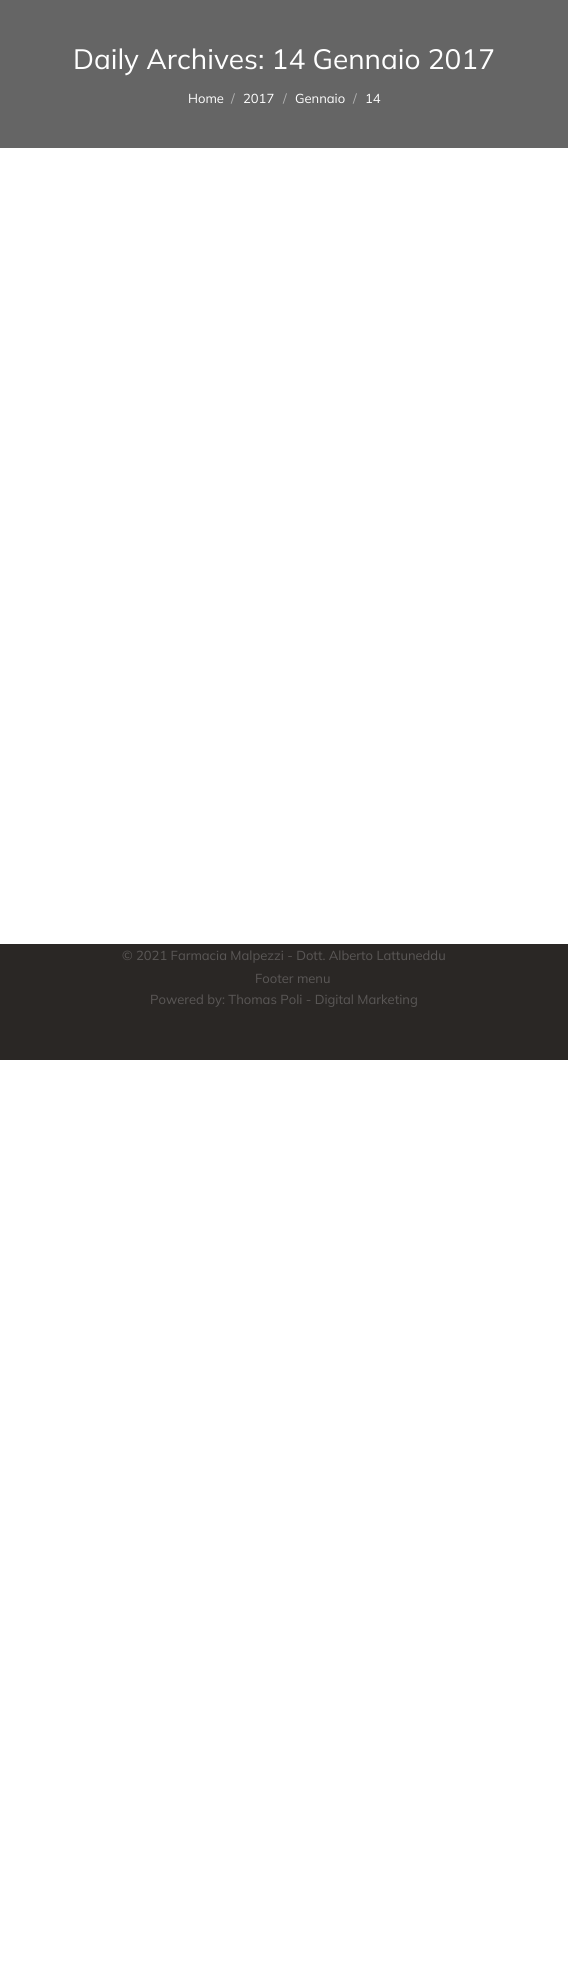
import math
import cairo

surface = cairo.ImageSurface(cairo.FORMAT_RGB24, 568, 1973)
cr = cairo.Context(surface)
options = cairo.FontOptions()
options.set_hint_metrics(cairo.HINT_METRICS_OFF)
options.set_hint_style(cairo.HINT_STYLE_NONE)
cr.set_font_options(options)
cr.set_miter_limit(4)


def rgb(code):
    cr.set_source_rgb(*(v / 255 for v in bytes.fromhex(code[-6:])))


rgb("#ffffff")
cr.paint()
rgb("#656565")
cr.rectangle(0, 0, 568, 148)
cr.fill()
rgb("#2a2725")
cr.rectangle(0, 944, 568, 116)
cr.fill()
cr.select_font_face("Mulish")
cr.set_font_size(28)
rgb("#ffffff")
cr.move_to(73, 69)
cr.show_text("Daily Archives: 14 Gennaio 2017")
cr.set_font_size(13)
cr.move_to(188, 103)
cr.show_text("Home")
rgb("#b2b2b2")
cr.move_to(231, 103)
cr.show_text("/")
rgb("#ffffff")
cr.move_to(243, 103)
cr.show_text("2017")
rgb("#b2b2b2")
cr.move_to(283, 103)
cr.show_text("/")
rgb("#ffffff")
cr.move_to(295, 103)
cr.show_text("Gennaio")
rgb("#b2b2b2")
cr.move_to(353, 103)
cr.show_text("/")
rgb("#ffffff")
cr.move_to(365, 103)
cr.show_text("14")
rgb("#5a5756")
for x, y, s in [
    (122, 960, "© 2021 Farmacia Malpezzi - Dott. Alberto Lattuneddu"),
    (255, 983, "Footer menu"),
    (150, 1004, "Powered by: Thomas Poli - Digital Marketing"),
]:
    cr.move_to(x, y)
    cr.show_text(s)
surface.write_to_png("page.png")
